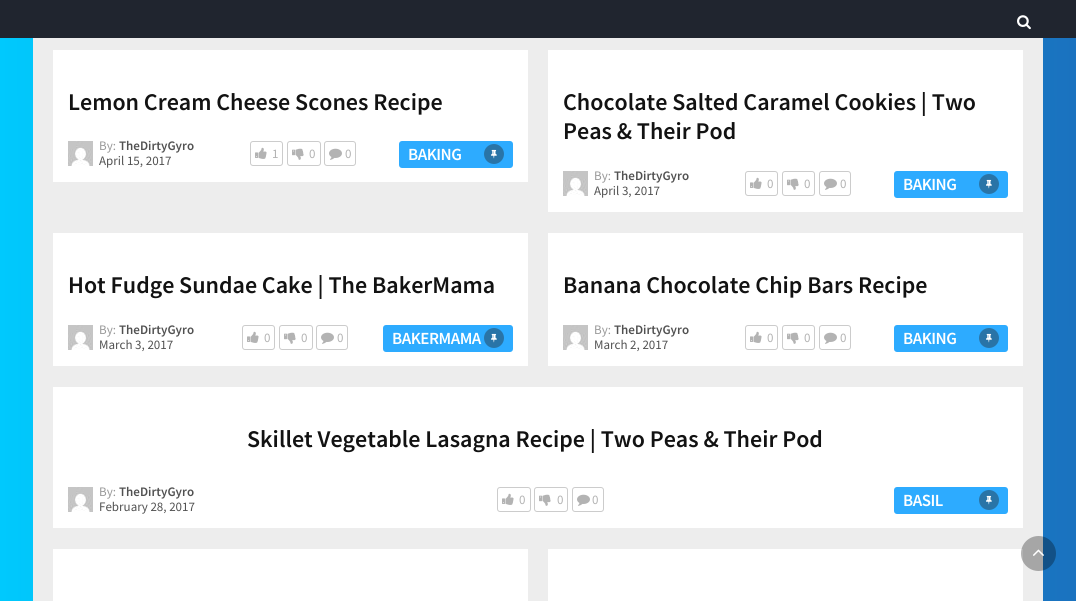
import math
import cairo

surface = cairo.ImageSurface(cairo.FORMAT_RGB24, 1076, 601)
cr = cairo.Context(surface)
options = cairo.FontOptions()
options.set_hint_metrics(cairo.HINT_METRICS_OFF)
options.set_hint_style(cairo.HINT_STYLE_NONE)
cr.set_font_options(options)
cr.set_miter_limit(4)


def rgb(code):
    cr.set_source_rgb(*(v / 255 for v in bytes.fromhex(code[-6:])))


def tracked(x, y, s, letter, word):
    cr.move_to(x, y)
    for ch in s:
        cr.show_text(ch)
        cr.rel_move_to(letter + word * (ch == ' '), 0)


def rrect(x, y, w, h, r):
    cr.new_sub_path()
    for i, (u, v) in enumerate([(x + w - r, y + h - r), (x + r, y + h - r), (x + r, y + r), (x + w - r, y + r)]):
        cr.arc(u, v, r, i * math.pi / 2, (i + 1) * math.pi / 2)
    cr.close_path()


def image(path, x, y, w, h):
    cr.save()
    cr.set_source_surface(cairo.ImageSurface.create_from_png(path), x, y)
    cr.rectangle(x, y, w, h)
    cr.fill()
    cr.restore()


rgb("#ffffff")
cr.paint()
gradient = cairo.LinearGradient(0, 477, 1076, 476)
gradient.add_color_stop_rgba(0, 0, 0.788, 0.992, 1)
gradient.add_color_stop_rgba(1, 0.102, 0.447, 0.749, 1)
cr.set_source(gradient)
cr.rectangle(0, 38, 1076, 563)
cr.fill()
rgb("#20252f")
cr.rectangle(0, 0, 1076, 38)
cr.fill()
image("img/1.png", 1017, 15, 14, 15)
rgb("#ededed")
cr.rectangle(33, 38, 1010, 563)
cr.fill()
rgb("#ffffff")
cr.rectangle(53, 50, 475, 132)
cr.fill()
image("img/2.png", 68, 141, 25, 25)
rrect(250.5, 141.5, 32, 24, 2.5)
rgb("#cccccc")
cr.set_line_width(1)
cr.stroke()
image("img/3.png", 255, 147, 12, 12)
rrect(287.5, 141.5, 33, 24, 2.5)
cr.stroke()
image("img/4.png", 292, 148, 12, 12)
rrect(324.5, 141.5, 31, 24, 2.5)
cr.stroke()
image("img/5.png", 329, 148, 13, 12)
rgb("#2dabff")
rrect(399, 141, 114, 27, 3)
cr.fill()
rgb("#2974a7")
cr.arc(494, 154, 10, 0, 2 * math.pi)
cr.fill()
image("img/6.png", 491, 149, 6, 10)
rgb("#ffffff")
cr.rectangle(548, 50, 475, 162)
cr.fill()
image("img/2.png", 563, 171, 25, 25)
rrect(745.5, 171.5, 32, 24, 2.5)
rgb("#cccccc")
cr.stroke()
image("img/3.png", 750, 177, 12, 12)
rrect(782.5, 171.5, 32, 24, 2.5)
cr.stroke()
image("img/4.png", 787, 178, 12, 12)
rrect(819.5, 171.5, 31, 24, 2.5)
cr.stroke()
image("img/5.png", 824, 178, 13, 12)
rgb("#2dabff")
rrect(894, 171, 114, 27, 3)
cr.fill()
rgb("#2974a7")
cr.arc(989, 184, 10, 0, 2 * math.pi)
cr.fill()
image("img/6.png", 986, 179, 6, 10)
rgb("#ffffff")
cr.rectangle(53, 233, 475, 133)
cr.fill()
image("img/2.png", 68, 325, 25, 25)
rrect(242.5, 325.5, 32, 24, 2.5)
rgb("#cccccc")
cr.stroke()
image("img/3.png", 247, 331, 12, 12)
rrect(279.5, 325.5, 33, 24, 2.5)
cr.stroke()
image("img/4.png", 284, 332, 12, 12)
rrect(316.5, 325.5, 31, 24, 2.5)
cr.stroke()
image("img/5.png", 321, 332, 13, 12)
rgb("#2dabff")
rrect(383, 325, 130, 27, 3)
cr.fill()
rgb("#2974a7")
cr.arc(494, 338, 10, 0, 2 * math.pi)
cr.fill()
image("img/6.png", 491, 333, 6, 10)
rgb("#ffffff")
cr.rectangle(548, 233, 475, 133)
cr.fill()
image("img/2.png", 563, 325, 25, 25)
rrect(745.5, 325.5, 32, 24, 2.5)
rgb("#cccccc")
cr.stroke()
image("img/3.png", 750, 331, 12, 12)
rrect(782.5, 325.5, 32, 24, 2.5)
cr.stroke()
image("img/4.png", 787, 332, 12, 12)
rrect(819.5, 325.5, 31, 24, 2.5)
cr.stroke()
image("img/5.png", 824, 332, 13, 12)
rgb("#2dabff")
rrect(894, 325, 114, 27, 3)
cr.fill()
rgb("#2974a7")
cr.arc(989, 338, 10, 0, 2 * math.pi)
cr.fill()
image("img/6.png", 986, 333, 6, 10)
rgb("#ffffff")
cr.rectangle(53, 387, 970, 141)
cr.fill()
image("img/2.png", 68, 487, 25, 25)
rrect(497.5, 487.5, 33, 24, 2.5)
rgb("#cccccc")
cr.stroke()
image("img/3.png", 502, 493, 12, 12)
rrect(534.5, 487.5, 33, 24, 2.5)
cr.stroke()
image("img/4.png", 539, 494, 12, 12)
rrect(572.5, 487.5, 31, 24, 2.5)
cr.stroke()
image("img/5.png", 577, 494, 13, 12)
rgb("#2dabff")
rrect(894, 487, 114, 27, 3)
cr.fill()
rgb("#2974a7")
cr.arc(989, 500, 10, 0, 2 * math.pi)
cr.fill()
image("img/6.png", 986, 495, 6, 10)
rgb("#ffffff")
cr.rectangle(53, 549, 475, 52)
cr.fill()
cr.rectangle(548, 549, 475, 52)
cr.fill()
cr.set_source_rgba(0, 0, 0, 0.3)
cr.arc(1038.5, 553.5, 17.5, 0, 2 * math.pi)
cr.fill()
image("img/7.png", 1033, 549, 11, 7)
cr.select_font_face("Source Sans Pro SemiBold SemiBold")
cr.set_font_size(24)
rgb("#121212")
cr.move_to(68, 110)
cr.show_text("Lemon Cream Cheese Scones Recipe")
cr.select_font_face("Source Sans Pro")
cr.set_font_size(13)
rgb("#999999")
cr.move_to(99, 150)
cr.show_text("By:")
cr.select_font_face("Source Sans Pro SemiBold SemiBold")
rgb("#515151")
cr.move_to(119, 150)
cr.show_text("TheDirtyGyro")
cr.select_font_face("Source Sans Pro")
cr.move_to(99, 165)
cr.show_text("April 15, 2017")
rgb("#b3b3b3")
for x, y, s in [
    (272, 158, "1"),
    (309, 158, "0"),
    (345, 158, "0"),
]:
    cr.move_to(x, y)
    cr.show_text(s)
cr.select_font_face("Source Sans Pro SemiBold SemiBold")
cr.set_font_size(17)
rgb("#ffffff")
tracked(408, 160, "BAKING", -0.5, 0)
cr.set_font_size(24)
rgb("#121212")
cr.move_to(563, 110)
cr.show_text("Chocolate Salted Caramel Cookies | Two")
cr.move_to(563, 139)
cr.show_text("Peas & Their Pod")
cr.select_font_face("Source Sans Pro")
cr.set_font_size(13)
rgb("#999999")
cr.move_to(594, 180)
cr.show_text("By:")
cr.select_font_face("Source Sans Pro SemiBold SemiBold")
rgb("#515151")
cr.move_to(614, 180)
cr.show_text("TheDirtyGyro")
cr.select_font_face("Source Sans Pro")
cr.move_to(594, 195)
cr.show_text("April 3, 2017")
rgb("#b3b3b3")
for x, y, s in [
    (767, 188, "0"),
    (804, 188, "0"),
    (840, 188, "0"),
]:
    cr.move_to(x, y)
    cr.show_text(s)
cr.select_font_face("Source Sans Pro SemiBold SemiBold")
cr.set_font_size(17)
rgb("#ffffff")
tracked(903, 190, "BAKING", -0.5, 0)
cr.set_font_size(24)
rgb("#121212")
cr.move_to(68, 293)
cr.show_text("Hot Fudge Sundae Cake | The BakerMama")
cr.select_font_face("Source Sans Pro")
cr.set_font_size(13)
rgb("#999999")
cr.move_to(99, 334)
cr.show_text("By:")
cr.select_font_face("Source Sans Pro SemiBold SemiBold")
rgb("#515151")
cr.move_to(119, 334)
cr.show_text("TheDirtyGyro")
cr.select_font_face("Source Sans Pro")
cr.move_to(99, 349)
cr.show_text("March 3, 2017")
rgb("#b3b3b3")
for x, y, s in [
    (264, 342, "0"),
    (301, 342, "0"),
    (337, 342, "0"),
]:
    cr.move_to(x, y)
    cr.show_text(s)
cr.select_font_face("Source Sans Pro SemiBold SemiBold")
cr.set_font_size(17)
rgb("#ffffff")
tracked(392, 344, "BAKERMAMA", -0.5, 0)
cr.set_font_size(24)
rgb("#121212")
cr.move_to(563, 293)
cr.show_text("Banana Chocolate Chip Bars Recipe")
cr.select_font_face("Source Sans Pro")
cr.set_font_size(13)
rgb("#999999")
cr.move_to(594, 334)
cr.show_text("By:")
cr.select_font_face("Source Sans Pro SemiBold SemiBold")
rgb("#515151")
cr.move_to(614, 334)
cr.show_text("TheDirtyGyro")
cr.select_font_face("Source Sans Pro")
cr.move_to(594, 349)
cr.show_text("March 2, 2017")
rgb("#b3b3b3")
for x, y, s in [
    (767, 342, "0"),
    (804, 342, "0"),
    (840, 342, "0"),
]:
    cr.move_to(x, y)
    cr.show_text(s)
cr.select_font_face("Source Sans Pro SemiBold SemiBold")
cr.set_font_size(17)
rgb("#ffffff")
tracked(903, 344, "BAKING", -0.5, 0)
cr.set_font_size(24)
rgb("#121212")
cr.move_to(247, 447)
cr.show_text("Skillet Vegetable Lasagna Recipe | Two Peas & Their Pod")
cr.select_font_face("Source Sans Pro")
cr.set_font_size(13)
rgb("#999999")
cr.move_to(99, 496)
cr.show_text("By:")
cr.select_font_face("Source Sans Pro SemiBold SemiBold")
rgb("#515151")
cr.move_to(119, 496)
cr.show_text("TheDirtyGyro")
cr.select_font_face("Source Sans Pro")
cr.move_to(99, 511)
cr.show_text("February 28, 2017")
rgb("#b3b3b3")
for x, y, s in [
    (519, 504, "0"),
    (557, 504, "0"),
    (592, 504, "0"),
]:
    cr.move_to(x, y)
    cr.show_text(s)
cr.select_font_face("Source Sans Pro SemiBold SemiBold")
cr.set_font_size(17)
rgb("#ffffff")
tracked(903, 506, "BASIL", -0.5, 0)
surface.write_to_png("page.png")
